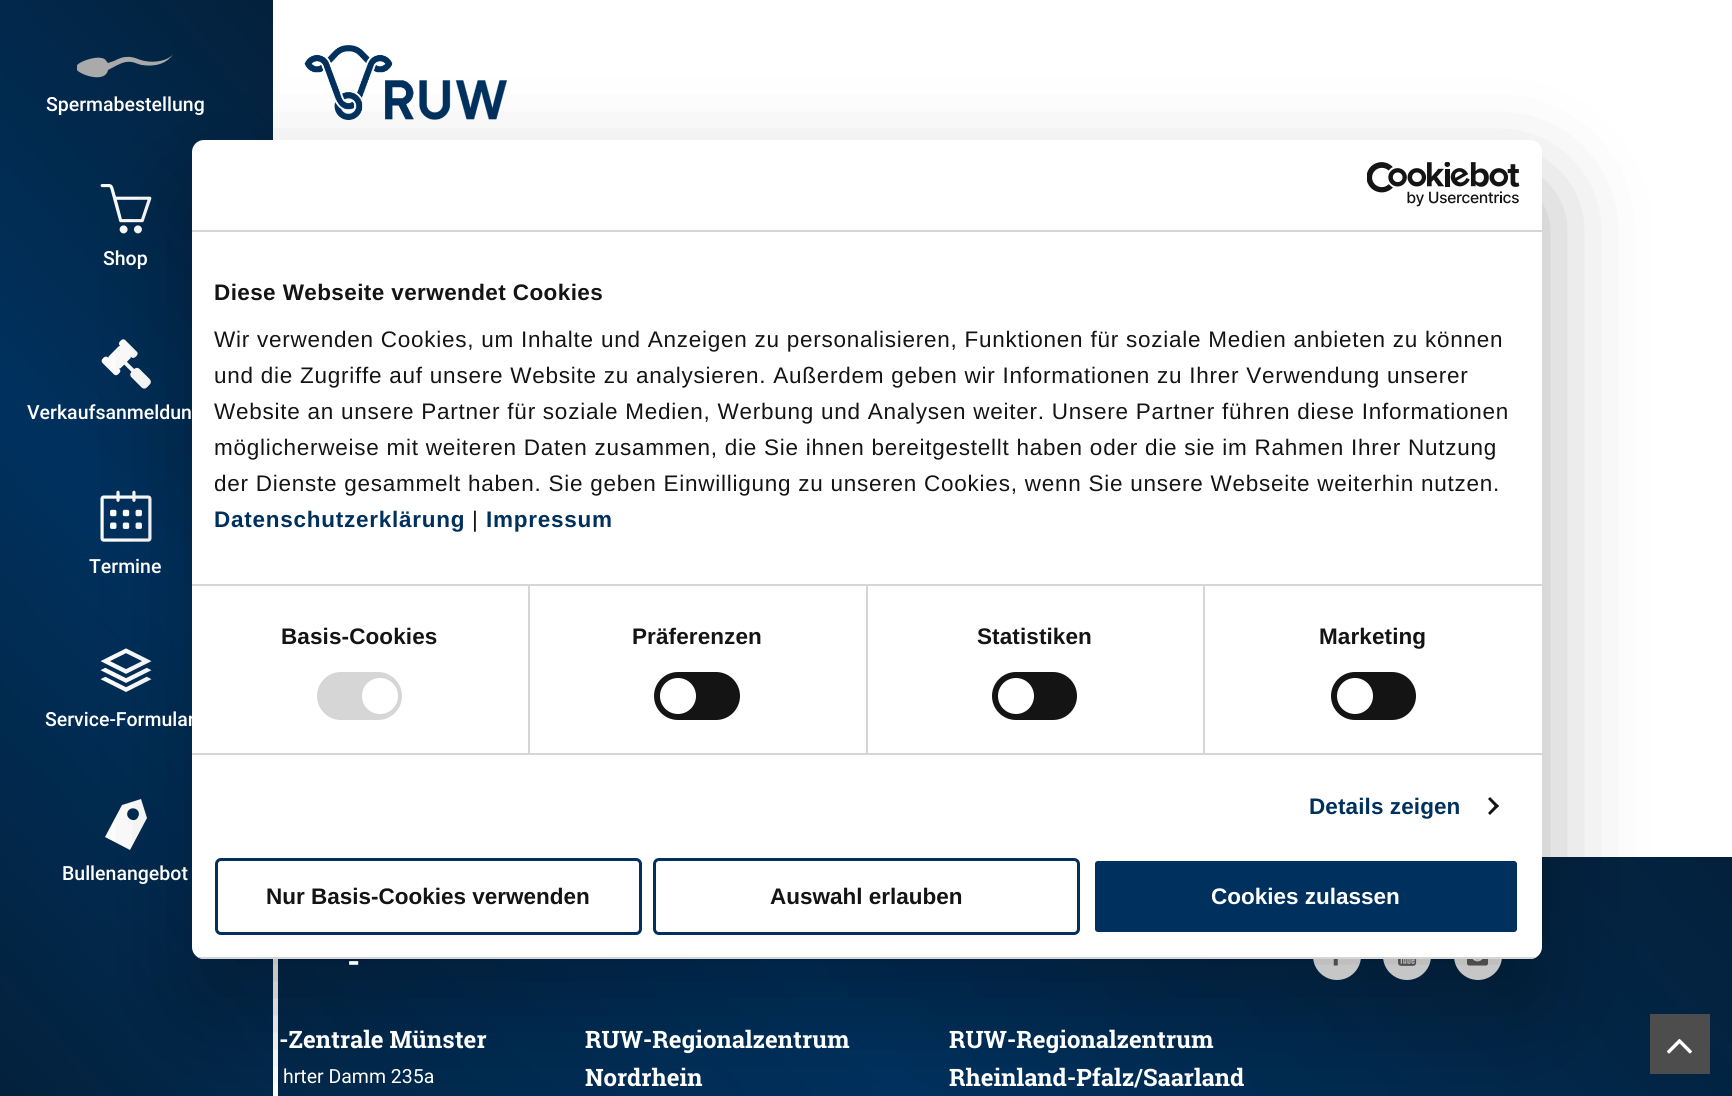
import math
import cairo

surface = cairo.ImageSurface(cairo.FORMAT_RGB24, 1732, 1096)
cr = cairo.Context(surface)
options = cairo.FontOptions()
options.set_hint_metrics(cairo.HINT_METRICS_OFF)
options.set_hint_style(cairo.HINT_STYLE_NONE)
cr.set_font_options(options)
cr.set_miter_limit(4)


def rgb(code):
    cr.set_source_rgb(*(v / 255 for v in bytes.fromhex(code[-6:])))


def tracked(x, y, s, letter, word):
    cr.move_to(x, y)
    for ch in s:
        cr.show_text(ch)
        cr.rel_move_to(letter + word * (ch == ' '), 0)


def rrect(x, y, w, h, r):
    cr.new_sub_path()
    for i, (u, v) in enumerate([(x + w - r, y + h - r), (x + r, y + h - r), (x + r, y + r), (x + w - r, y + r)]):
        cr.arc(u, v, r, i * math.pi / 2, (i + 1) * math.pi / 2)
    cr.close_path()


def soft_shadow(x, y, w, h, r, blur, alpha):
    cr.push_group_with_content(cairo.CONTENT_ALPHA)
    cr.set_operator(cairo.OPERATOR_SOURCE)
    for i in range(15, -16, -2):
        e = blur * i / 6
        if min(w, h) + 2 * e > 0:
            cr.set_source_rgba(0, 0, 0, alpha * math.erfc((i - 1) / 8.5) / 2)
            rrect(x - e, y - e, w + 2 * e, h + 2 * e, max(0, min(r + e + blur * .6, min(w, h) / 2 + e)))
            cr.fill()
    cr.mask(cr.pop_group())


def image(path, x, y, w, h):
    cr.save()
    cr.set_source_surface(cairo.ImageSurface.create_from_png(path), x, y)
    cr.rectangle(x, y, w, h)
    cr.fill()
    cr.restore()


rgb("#ffffff")
cr.paint()
image("img/1.png", 304, 45, 203, 75)
gradient = cairo.LinearGradient(-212, 862, 485, 235)
gradient.add_color_stop_rgba(0, 0.012, 0.129, 0.235, 1)
gradient.add_color_stop_rgba(0.5, 0, 0.192, 0.369, 1)
gradient.add_color_stop_rgba(1, 0.012, 0.129, 0.235, 1)
cr.set_source(gradient)
cr.rectangle(0, 0, 273, 1096)
cr.fill()
cr.save()
cr.rectangle(77, 53, 97, 25)
cr.clip()
rgb("#aaaaaa")
cr.new_path()
cr.move_to(76, 68)
cr.curve_to(75, 62, 96, 56, 101, 58)
cr.curve_to(104, 58, 106, 60, 107, 62)
cr.line_to(108, 63)
cr.line_to(114, 61)
cr.curve_to(118, 59, 122, 57, 126, 57)
cr.curve_to(134, 56, 138, 60, 145, 61)
cr.curve_to(154, 63, 169, 61, 174, 53)
cr.curve_to(167, 64, 155, 67, 142, 65)
cr.curve_to(136, 64, 134, 61, 126, 62)
cr.curve_to(120, 63, 114, 67, 108, 70)
cr.curve_to(105, 85, 75, 73, 76, 68)
cr.close_path()
cr.fill()
cr.restore()
image("img/2.png", 100, 184, 52, 50)
image("img/3.png", 101, 339, 50, 50)
image("img/4.png", 100, 490, 52, 52)
image("img/5.png", 100, 648, 52, 44)
rgb("#ffffff")
cr.new_path()
cr.move_to(147, 818)
cr.line_to(141, 799)
cr.line_to(122, 805)
cr.line_to(105, 837)
cr.line_to(130, 850)
cr.close_path()
cr.move_to(138, 817)
cr.curve_to(135, 824, 124, 818, 128, 811)
cr.curve_to(132, 805, 142, 810, 138, 817)
cr.close_path()
cr.fill()
gradient = cairo.LinearGradient(342, 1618, 1488, 585)
gradient.add_color_stop_rgba(0, 0.012, 0.129, 0.235, 1)
gradient.add_color_stop_rgba(0.5, 0, 0.192, 0.369, 1)
gradient.add_color_stop_rgba(1, 0.012, 0.129, 0.235, 1)
cr.set_source(gradient)
cr.rectangle(278, 857, 1454, 239)
cr.fill()
rgb("#ffffff")
cr.arc(1337, 956, 24, 0, 2 * math.pi)
cr.fill()
image("img/7.png", 1333, 959, 5, 7)
cr.arc(1407, 956, 24, 0, 2 * math.pi)
cr.fill()
image("img/8.png", 1398, 959, 19, 7)
cr.arc(1478, 956, 24, 0, 2 * math.pi)
cr.fill()
image("img/9.png", 1467, 959, 21, 7)
rgb("#4d4d4d")
cr.rectangle(1650, 1014, 60, 60)
cr.fill()
image("img/10.png", 1666, 1038, 26, 16)
rgb("#000000")
soft_shadow(192, 188, 1350, 819, 12, 51, 0.3)
rgb("#ffffff")
rrect(192, 140, 1350, 819, 12)
cr.fill()
rgb("#d6d6d6")
cr.rectangle(192, 230, 1350, 2)
cr.fill()
image("img/6.png", 1367, 162, 153, 45)
for x, y, w, h, color in [
    (528, 585, 2, 168, "#d6d6d6"),
    (866, 585, 2, 168, "#d6d6d6"),
    (1203, 585, 2, 168, "#d6d6d6"),
    (192, 584, 1350, 2, "#d6d6d6"),
    (192, 753, 1350, 2, "#d6d6d6"),
]:
    rgb(color)
    cr.rectangle(x, y, w, h)
    cr.fill()
rrect(317, 672, 85, 48, 24)
cr.fill()
rgb("#ffffff")
cr.arc(380, 696, 18, 0, 2 * math.pi)
cr.fill()
rgb("#141414")
rrect(654, 672, 86, 48, 24)
cr.fill()
rgb("#ffffff")
cr.arc(678, 696, 18, 0, 2 * math.pi)
cr.fill()
rgb("#141414")
rrect(992, 672, 85, 48, 24)
cr.fill()
rgb("#ffffff")
cr.arc(1016, 696, 18, 0, 2 * math.pi)
cr.fill()
rgb("#141414")
rrect(1331, 672, 85, 48, 24)
cr.fill()
rgb("#ffffff")
cr.arc(1355, 696, 18, 0, 2 * math.pi)
cr.fill()
rgb("#141414")
cr.new_path()
cr.move_to(1490, 797)
cr.line_to(1499, 806)
cr.line_to(1496.5, 808)
cr.line_to(1488, 799)
cr.close_path()
cr.fill()
cr.new_path()
cr.move_to(1496.5, 804)
cr.line_to(1499, 806)
cr.line_to(1490, 815)
cr.line_to(1488, 813)
cr.close_path()
cr.fill()
cr.save()
rrect(192, 140, 1350, 819, 12)
cr.clip()
rgb("#d6d6d6")
cr.rectangle(192, 957, 1350, 2)
cr.fill()
cr.restore()
rrect(216.5, 859.5, 424, 74, 4.5)
rgb("#00315e")
cr.set_line_width(3)
cr.stroke()
rrect(654.5, 859.5, 424, 74, 4.5)
cr.stroke()
rrect(1093.5, 859.5, 425, 74, 4.5)
cr.fill_preserve()
rgb("#ffffff")
cr.stroke()
cr.select_font_face("Roboto Medium")
cr.set_font_size(19.5)
for x, y, s in [
    (46, 111, "Spermabestellung"),
    (103, 265, "Shop"),
    (27, 419, "Verkaufsanmeldun"),
    (89, 573, "Termine"),
    (45, 726, "Service-Formular"),
    (62, 880, "Bullenangebot"),
]:
    cr.move_to(x, y)
    cr.show_text(s)
cr.select_font_face("Liberation Sans", cairo.FONT_SLANT_NORMAL, cairo.FONT_WEIGHT_BOLD)
cr.set_font_size(22.5)
rgb("#141414")
tracked(214, 300, "Diese Webseite verwendet Cookies", 0.4, 0)
cr.select_font_face("Liberation Sans")
for x, y, s in [
    (214, 347, "Wir verwenden Cookies, um Inhalte und Anzeigen zu personalisieren, Funktionen für soziale Medien anbieten zu können"),
    (214, 383, "und die Zugriffe auf unsere Website zu analysieren. Außerdem geben wir Informationen zu Ihrer Verwendung unserer"),
    (214, 419, "Website an unsere Partner für soziale Medien, Werbung und Analysen weiter. Unsere Partner führen diese Informationen"),
    (214, 455, "möglicherweise mit weiteren Daten zusammen, die Sie ihnen bereitgestellt haben oder die sie im Rahmen Ihrer Nutzung"),
    (214, 491, "der Dienste gesammelt haben. Sie geben Einwilligung zu unseren Cookies, wenn Sie unsere Webseite weiterhin nutzen."),
]:
    tracked(x, y, s, 0.75, 0)
cr.select_font_face("Liberation Sans", cairo.FONT_SLANT_NORMAL, cairo.FONT_WEIGHT_BOLD)
rgb("#00315e")
tracked(214, 527, "Datenschutzerklärung", 0.75, 0)
cr.select_font_face("Liberation Sans")
rgb("#141414")
tracked(472, 527, "|", 0.75, 0)
cr.select_font_face("Liberation Sans", cairo.FONT_SLANT_NORMAL, cairo.FONT_WEIGHT_BOLD)
rgb("#00315e")
tracked(486, 527, "Impressum", 0.75, 0)
rgb("#141414")
for x, y, s in [
    (281, 644, "Basis-Cookies"),
    (632, 644, "Präferenzen"),
    (977, 644, "Statistiken"),
    (1319, 644, "Marketing"),
]:
    tracked(x, y, s, 0.1, 0)
rgb("#00315e")
tracked(1309, 814, "Details zeigen", 0.1, 0)
rgb("#141414")
cr.move_to(266, 904)
cr.show_text("Nur Basis-Cookies verwenden")
cr.move_to(770, 904)
cr.show_text("Auswahl erlauben")
rgb("#ffffff")
cr.move_to(1211, 904)
cr.show_text("Cookies zulassen")
cr.select_font_face("Roboto Slab", cairo.FONT_SLANT_NORMAL, cairo.FONT_WEIGHT_BOLD)
cr.set_font_size(33)
cr.move_to(347, 973)
cr.show_text("-")
cr.set_font_size(24)
cr.move_to(279, 1048)
cr.show_text("-Zentrale Münster")
cr.select_font_face("Roboto")
cr.set_font_size(19.5)
cr.move_to(283, 1083)
cr.show_text("hrter Damm 235a")
cr.select_font_face("Roboto Slab", cairo.FONT_SLANT_NORMAL, cairo.FONT_WEIGHT_BOLD)
cr.set_font_size(24)
for x, y, s in [
    (585, 1048, "RUW-Regionalzentrum"),
    (585, 1086, "Nordrhein"),
    (949, 1048, "RUW-Regionalzentrum"),
    (949, 1086, "Rheinland-Pfalz/Saarland"),
]:
    cr.move_to(x, y)
    cr.show_text(s)
surface.write_to_png("page.png")
